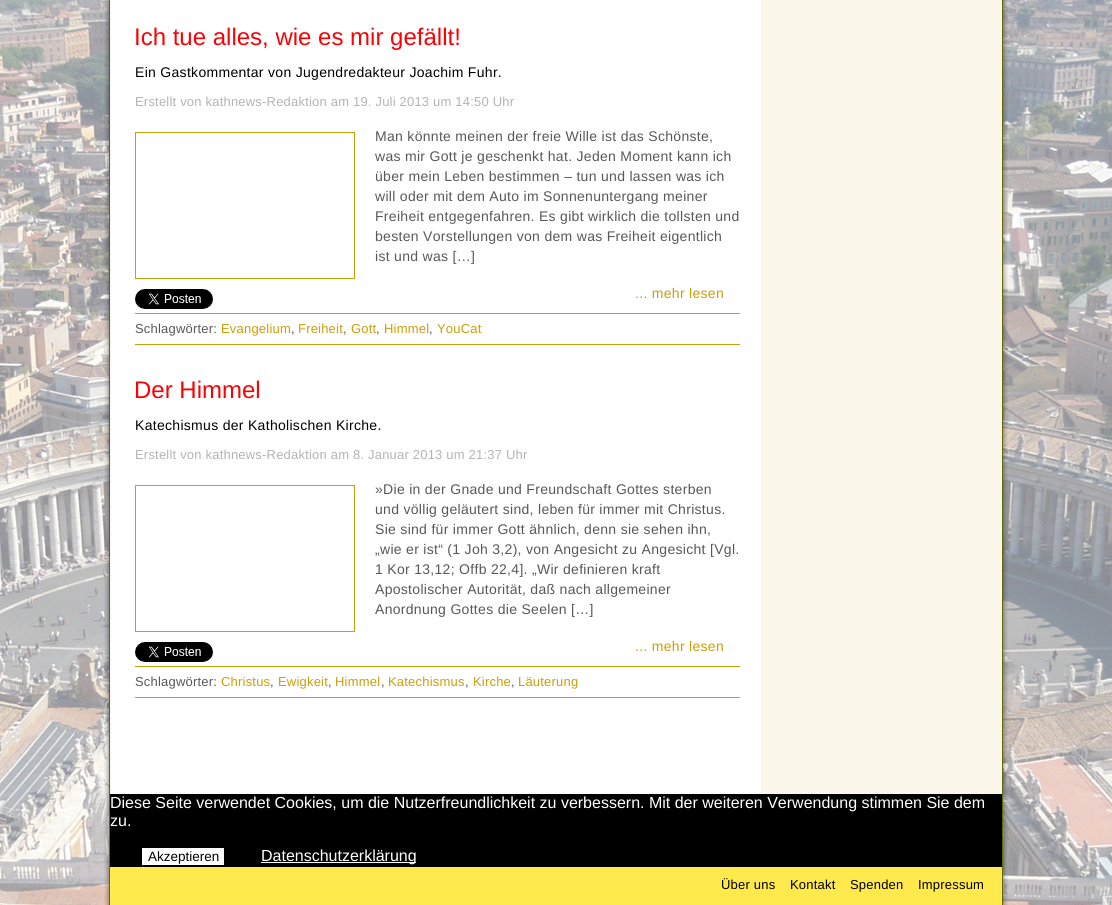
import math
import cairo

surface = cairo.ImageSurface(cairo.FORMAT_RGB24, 1112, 905)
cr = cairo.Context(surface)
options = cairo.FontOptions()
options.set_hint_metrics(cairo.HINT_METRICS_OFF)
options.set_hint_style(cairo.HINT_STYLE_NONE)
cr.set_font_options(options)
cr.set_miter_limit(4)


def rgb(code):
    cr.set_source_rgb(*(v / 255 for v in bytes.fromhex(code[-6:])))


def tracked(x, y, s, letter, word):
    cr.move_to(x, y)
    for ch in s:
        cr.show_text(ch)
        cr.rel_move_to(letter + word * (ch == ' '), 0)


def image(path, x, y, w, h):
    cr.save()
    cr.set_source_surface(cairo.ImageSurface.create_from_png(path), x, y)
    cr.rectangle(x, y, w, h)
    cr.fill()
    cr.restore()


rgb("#ffffff")
cr.paint()
image("img/1.png", 0, 0, 1112, 905)
image("img/2.png", 104, 0, 904, 905)
rgb("#fbf7eb")
cr.rectangle(762, 0, 240, 794)
cr.fill()
rgb("#f6f6de")
cr.rectangle(761, 0, 1, 794)
cr.fill()
cr.rectangle(135.5, 132.5, 219, 146)
rgb("#ce9d09")
cr.set_line_width(1)
cr.stroke()
image("img/3.png", 135, 289, 78, 20)
cr.rectangle(135, 313, 605, 1)
cr.fill()
cr.rectangle(135, 344, 605, 1)
cr.fill()
cr.rectangle(135.5, 485.5, 219, 146)
cr.stroke()
image("img/3.png", 135, 642, 78, 20)
for x, y, w, h, color in [
    (135, 666, 605, 1, "#ce9d09"),
    (135, 697, 605, 1, "#ce9d09"),
    (110, 794, 892, 73, "#000000"),
    (142, 848, 82, 17, "#ffffff"),
    (261, 862, 155, 1, "#ffffff"),
    (110, 867, 892, 38, "#ffe94d"),
]:
    rgb(color)
    cr.rectangle(x, y, w, h)
    cr.fill()
cr.select_font_face("Liberation Sans")
cr.set_font_size(24)
rgb("#fa0204")
cr.move_to(134, 45)
cr.show_text("Ich tue alles, wie es mir gefällt!")
cr.set_font_size(14)
rgb("#000000")
tracked(135, 77, "Ein Gastkommentar von Jugendredakteur Joachim Fuhr.", 0.3, 0)
cr.set_font_size(13)
rgb("#b4b4b4")
tracked(135, 106, "Erstellt von kathnews-Redaktion am 19. Juli 2013 um 14:50 Uhr", 0.2, 0)
cr.set_font_size(14)
rgb("#58585a")
for x, y, s in [
    (375, 141, "Man könnte meinen der freie Wille ist das Schönste,"),
    (375, 161, "was mir Gott je geschenkt hat. Jeden Moment kann ich"),
    (375, 181, "über mein Leben bestimmen – tun und lassen was ich"),
    (375, 201, "will oder mit dem Auto im Sonnenuntergang meiner"),
    (375, 221, "Freiheit entgegenfahren. Es gibt wirklich die tollsten und"),
    (375, 241, "besten Vorstellungen von dem was Freiheit eigentlich"),
    (375, 261, "ist und was […]"),
]:
    tracked(x, y, s, 0.3, 0)
rgb("#ce9d09")
tracked(635, 298, "... mehr lesen", 0.3, 0)
cr.set_font_size(13)
rgb("#58585a")
tracked(135, 333, "Schlagwörter:", 0.2, 0)
rgb("#ce9d09")
tracked(221, 333, "Evangelium", 0.2, 0)
rgb("#58585a")
tracked(291, 333, ",", 0.2, 0)
rgb("#ce9d09")
tracked(298, 333, "Freiheit", 0.2, 0)
rgb("#58585a")
tracked(343, 333, ",", 0.2, 0)
rgb("#ce9d09")
tracked(351, 333, "Gott", 0.2, 0)
rgb("#58585a")
tracked(376, 333, ",", 0.2, 0)
rgb("#ce9d09")
tracked(384, 333, "Himmel", 0.2, 0)
rgb("#58585a")
tracked(429, 333, ",", 0.2, 0)
rgb("#ce9d09")
tracked(437, 333, "YouCat", 0.2, 0)
cr.set_font_size(24)
rgb("#fa0204")
cr.move_to(134, 398)
cr.show_text("Der Himmel")
cr.set_font_size(14)
rgb("#000000")
tracked(135, 430, "Katechismus der Katholischen Kirche.", 0.3, 0)
cr.set_font_size(13)
rgb("#b4b4b4")
tracked(135, 459, "Erstellt von kathnews-Redaktion am 8. Januar 2013 um 21:37 Uhr", 0.2, 0)
cr.set_font_size(14)
rgb("#58585a")
for x, y, s in [
    (375, 494, "»Die in der Gnade und Freundschaft Gottes sterben"),
    (375, 514, "und völlig geläutert sind, leben für immer mit Christus."),
    (375, 534, "Sie sind für immer Gott ähnlich, denn sie sehen ihn,"),
    (375, 554, "„wie er ist“ (1 Joh 3,2), von Angesicht zu Angesicht [Vgl."),
    (375, 574, "1 Kor 13,12; Offb 22,4]. „Wir definieren kraft"),
    (375, 594, "Apostolischer Autorität, daß nach allgemeiner"),
    (375, 614, "Anordnung Gottes die Seelen […]"),
]:
    tracked(x, y, s, 0.3, 0)
rgb("#ce9d09")
tracked(635, 651, "... mehr lesen", 0.3, 0)
cr.set_font_size(13)
rgb("#58585a")
tracked(135, 686, "Schlagwörter:", 0.2, 0)
rgb("#ce9d09")
tracked(221, 686, "Christus", 0.2, 0)
rgb("#58585a")
tracked(270, 686, ",", 0.2, 0)
rgb("#ce9d09")
tracked(278, 686, "Ewigkeit", 0.2, 0)
rgb("#58585a")
tracked(328, 686, ",", 0.2, 0)
rgb("#ce9d09")
tracked(335, 686, "Himmel", 0.2, 0)
rgb("#58585a")
tracked(381, 686, ",", 0.2, 0)
rgb("#ce9d09")
tracked(388, 686, "Katechismus", 0.2, 0)
rgb("#58585a")
tracked(465, 686, ",", 0.2, 0)
rgb("#ce9d09")
tracked(473, 686, "Kirche", 0.2, 0)
rgb("#58585a")
tracked(511, 686, ",", 0.2, 0)
rgb("#ce9d09")
tracked(518, 686, "Läuterung", 0.2, 0)
cr.set_font_size(16)
rgb("#ffffff")
cr.move_to(110, 808)
cr.show_text("Diese Seite verwendet Cookies, um die Nutzerfreundlichkeit zu verbessern. Mit der weiteren Verwendung stimmen Sie dem")
cr.move_to(110, 826)
cr.show_text("zu.")
cr.set_font_size(13.5)
rgb("#000000")
cr.move_to(148, 861)
cr.show_text("Akzeptieren")
cr.set_font_size(16)
rgb("#ffffff")
cr.move_to(261, 861)
cr.show_text("Datenschutzerklärung")
cr.set_font_size(13)
rgb("#000000")
for x, y, s in [
    (721, 889, "Über uns"),
    (790, 889, "Kontakt"),
    (850, 889, "Spenden"),
    (918, 889, "Impressum"),
]:
    tracked(x, y, s, 0.2, 0)
surface.write_to_png("page.png")
